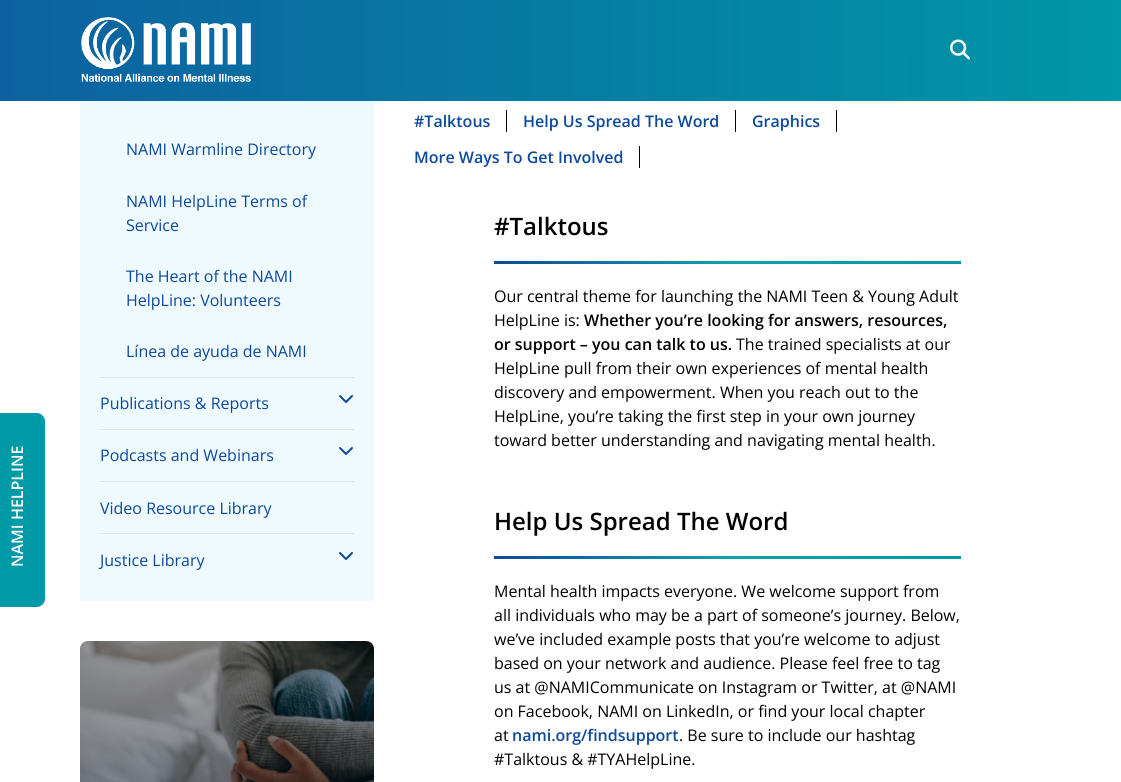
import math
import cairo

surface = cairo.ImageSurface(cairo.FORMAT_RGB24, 1121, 782)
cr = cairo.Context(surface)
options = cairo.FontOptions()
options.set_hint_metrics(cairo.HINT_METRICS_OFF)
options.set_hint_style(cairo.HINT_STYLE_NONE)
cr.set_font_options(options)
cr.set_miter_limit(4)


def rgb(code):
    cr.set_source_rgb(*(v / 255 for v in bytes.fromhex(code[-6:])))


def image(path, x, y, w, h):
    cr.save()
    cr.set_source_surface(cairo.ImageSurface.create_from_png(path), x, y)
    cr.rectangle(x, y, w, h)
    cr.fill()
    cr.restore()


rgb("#ffffff")
cr.paint()
gradient = cairo.LinearGradient(0, 51, 1121, 50)
gradient.add_color_stop_rgba(0, 0.051, 0.38, 0.627, 1)
gradient.add_color_stop_rgba(1, 0, 0.592, 0.655, 1)
cr.set_source(gradient)
cr.rectangle(0, 0, 1121, 101)
cr.fill()
image("img/1.png", 81, 17, 170, 65)
image("img/2.png", 950, 39, 20, 21)
rgb("#0099a8")
cr.new_path()
cr.move_to(-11, 607)
cr.line_to(-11, 413)
cr.line_to(37, 413)
cr.curve_to(41, 413, 45, 417, 45, 421)
cr.line_to(45, 599)
cr.curve_to(45, 603, 41, 607, 37, 607)
cr.close_path()
cr.fill()
for x, y, w, h, color in [
    (80, 101, 294, 500, "#effafe"),
    (100, 377, 254, 1, "#d8e8ee"),
    (100, 429, 254, 1, "#d8e8ee"),
]:
    rgb(color)
    cr.rectangle(x, y, w, h)
    cr.fill()
image("img/3.png", 339, 395, 14, 8)
cr.rectangle(100, 481, 254, 1)
cr.fill()
image("img/3.png", 339, 447, 14, 8)
cr.rectangle(100, 533, 254, 1)
cr.fill()
image("img/3.png", 339, 552, 14, 8)
image("img/4.png", 80, 641, 294, 141)
for x, y, w, h, color in [
    (506, 110, 1, 22, "#000000"),
    (735, 110, 1, 22, "#000000"),
    (836, 110, 1, 22, "#000000"),
    (639, 146, 1, 22, "#000000"),
]:
    rgb(color)
    cr.rectangle(x, y, w, h)
    cr.fill()
gradient = cairo.LinearGradient(494, 263, 961, 263)
gradient.add_color_stop_rgba(0, 0.047, 0.286, 0.612, 1)
gradient.add_color_stop_rgba(0.5, 0.067, 0.627, 0.682, 1)
gradient.add_color_stop_rgba(1, 0, 0.6, 0.659, 1)
cr.set_source(gradient)
cr.rectangle(494, 261, 467, 3)
cr.fill()
gradient = cairo.LinearGradient(494, 558, 961, 558)
gradient.add_color_stop_rgba(0, 0.047, 0.286, 0.612, 1)
gradient.add_color_stop_rgba(0.5, 0.067, 0.627, 0.682, 1)
gradient.add_color_stop_rgba(1, 0, 0.6, 0.659, 1)
cr.set_source(gradient)
cr.rectangle(494, 556, 467, 3)
cr.fill()
cr.select_font_face("Open Sans SemiBold")
cr.set_font_size(16)
rgb("#ffffff")
cr.save()
cr.translate(23, 567)
cr.rotate(-90 * math.pi / 180)
cr.move_to(0, 0)
cr.show_text("NAMI HELPLINE")
cr.restore()
cr.select_font_face("Open Sans")
rgb("#0c499c")
for x, y, s in [
    (126, 155, "NAMI Warmline Directory"),
    (126, 207, "NAMI HelpLine Terms of"),
    (126, 231, "Service"),
    (126, 282, "The Heart of the NAMI"),
    (126, 306, "HelpLine: Volunteers"),
    (126, 357, "Línea de ayuda de NAMI"),
    (100, 409, "Publications & Reports"),
    (100, 461, "Podcasts and Webinars"),
    (100, 514, "Video Resource Library"),
    (100, 566, "Justice Library"),
]:
    cr.move_to(x, y)
    cr.show_text(s)
cr.select_font_face("Open Sans SemiBold")
for x, y, s in [
    (414, 127, "#Talktous"),
    (523, 127, "Help Us Spread The Word"),
    (752, 127, "Graphics"),
    (414, 163, "More Ways To Get Involved"),
]:
    cr.move_to(x, y)
    cr.show_text(s)
cr.set_font_size(24)
rgb("#000000")
cr.move_to(494, 235)
cr.show_text("#Talktous")
cr.select_font_face("Open Sans")
cr.set_font_size(16)
cr.move_to(494, 302)
cr.show_text("Our central theme for launching the NAMI Teen & Young Adult")
cr.move_to(494, 326)
cr.show_text("HelpLine is:")
cr.select_font_face("Open Sans SemiBold")
cr.move_to(584, 326)
cr.show_text("Whether you’re looking for answers, resources,")
cr.move_to(494, 350)
cr.show_text("or support – you can talk to us.")
cr.select_font_face("Open Sans")
for x, y, s in [
    (736, 350, "The trained specialists at our"),
    (494, 374, "HelpLine pull from their own experiences of mental health"),
    (494, 398, "discovery and empowerment. When you reach out to the"),
    (494, 422, "HelpLine, you’re taking the first step in your own journey"),
    (494, 446, "toward better understanding and navigating mental health."),
]:
    cr.move_to(x, y)
    cr.show_text(s)
cr.select_font_face("Open Sans SemiBold")
cr.set_font_size(24)
cr.move_to(494, 530)
cr.show_text("Help Us Spread The Word")
cr.select_font_face("Open Sans")
cr.set_font_size(16)
for x, y, s in [
    (494, 597, "Mental health impacts everyone. We welcome support from"),
    (494, 621, "all individuals who may be a part of someone’s journey. Below,"),
    (494, 645, "we’ve included example posts that you’re welcome to adjust"),
    (494, 669, "based on your network and audience. Please feel free to tag"),
    (494, 693, "us at @NAMICommunicate on Instagram or Twitter, at @NAMI"),
    (494, 717, "on Facebook, NAMI on LinkedIn, or find your local chapter"),
    (494, 741, "at"),
]:
    cr.move_to(x, y)
    cr.show_text(s)
cr.select_font_face("Open Sans SemiBold")
rgb("#0c499c")
cr.move_to(512, 741)
cr.show_text("nami.org/findsupport")
cr.select_font_face("Open Sans")
rgb("#000000")
cr.move_to(679, 741)
cr.show_text(". Be sure to include our hashtag")
cr.move_to(494, 765)
cr.show_text("#Talktous & #TYAHelpLine.")
surface.write_to_png("page.png")
